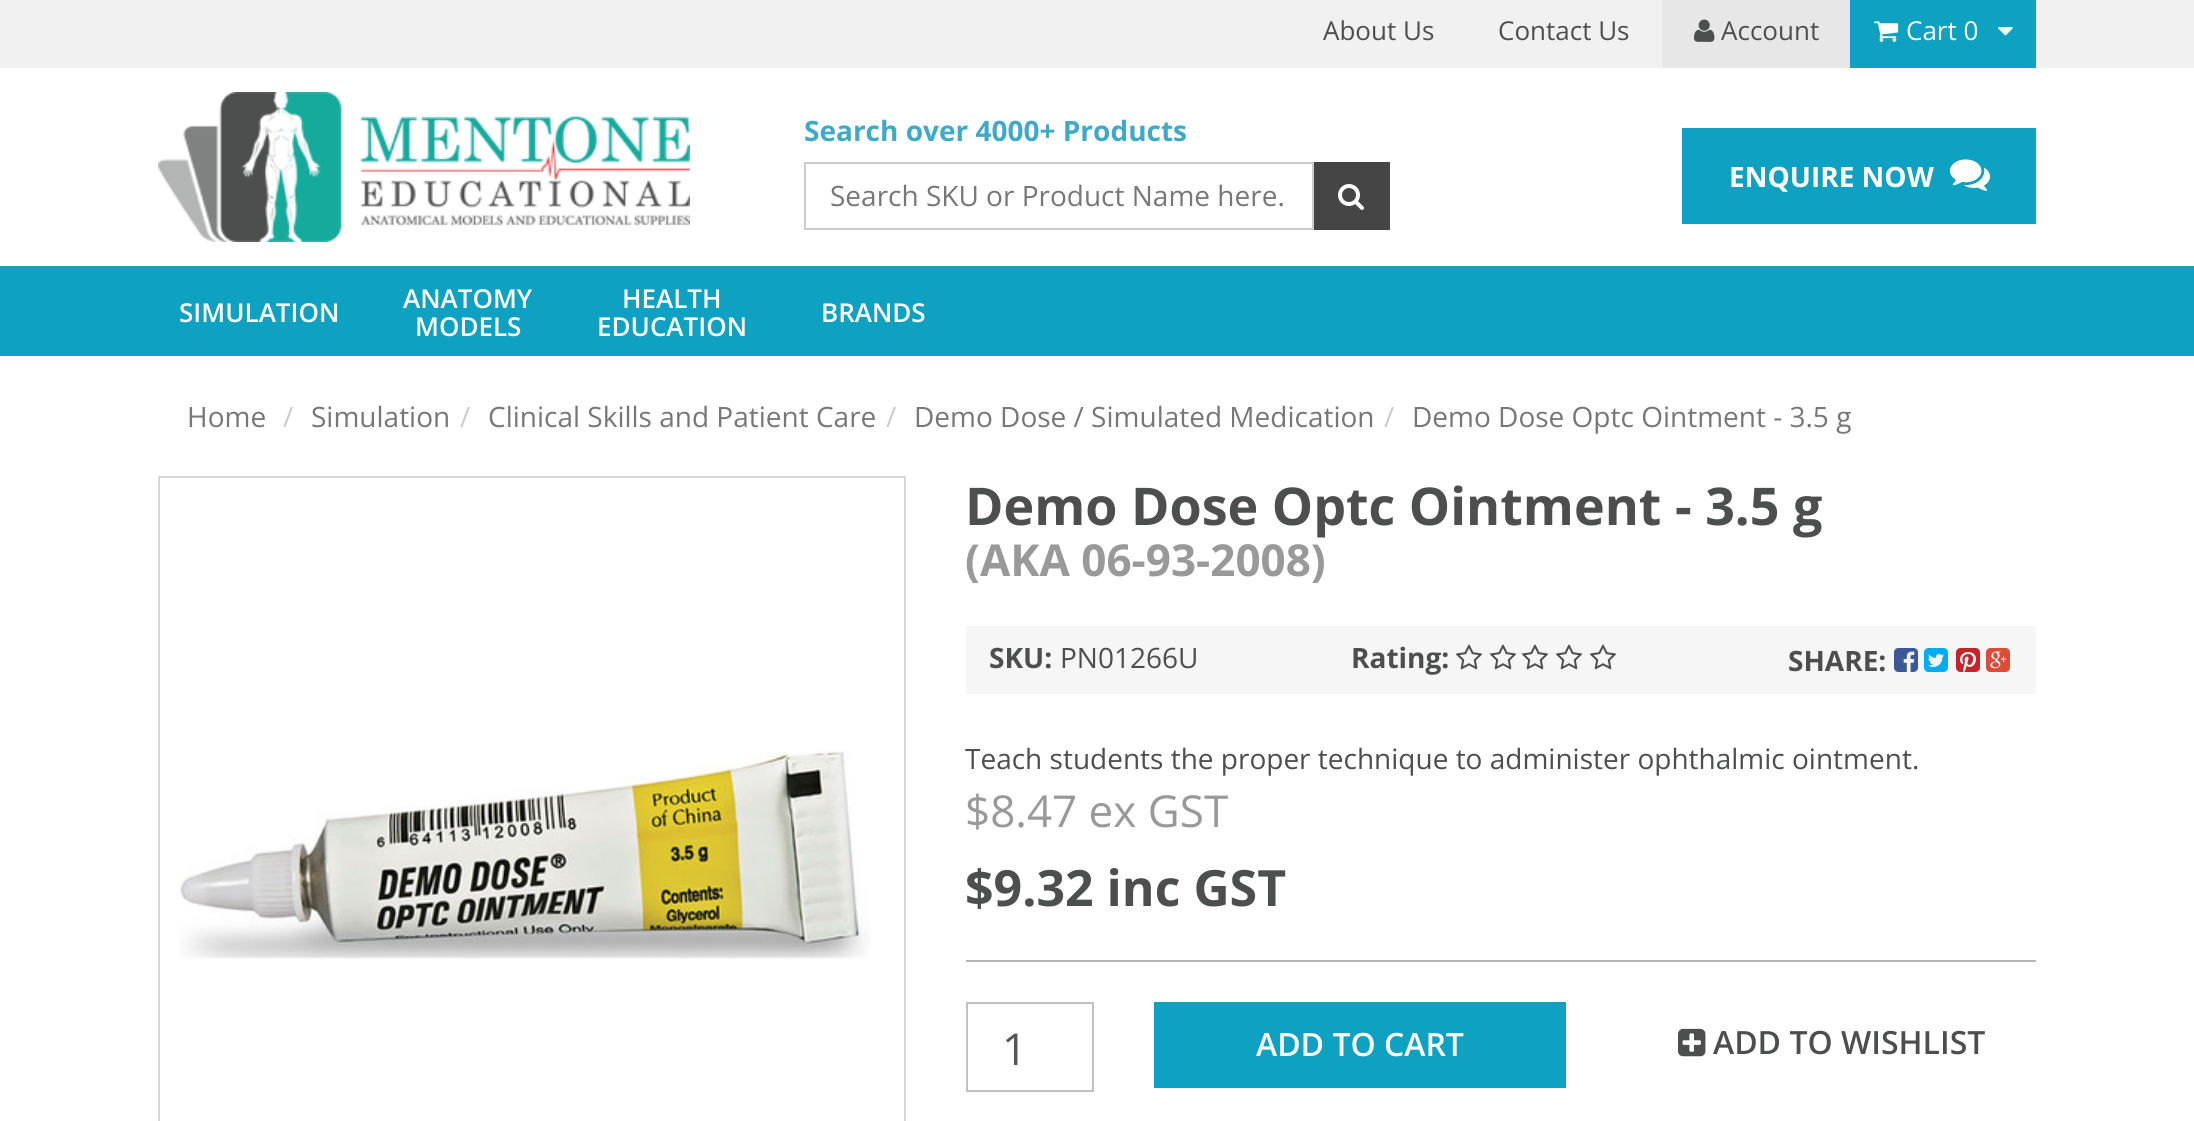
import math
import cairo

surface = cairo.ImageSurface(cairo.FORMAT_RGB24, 2194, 1121)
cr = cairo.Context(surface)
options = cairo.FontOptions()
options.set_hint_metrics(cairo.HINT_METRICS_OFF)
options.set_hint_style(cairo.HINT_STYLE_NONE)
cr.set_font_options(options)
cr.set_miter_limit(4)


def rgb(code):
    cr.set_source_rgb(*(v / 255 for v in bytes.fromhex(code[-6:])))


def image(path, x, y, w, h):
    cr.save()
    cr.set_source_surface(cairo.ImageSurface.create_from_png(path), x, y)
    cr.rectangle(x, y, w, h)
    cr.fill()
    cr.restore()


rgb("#ffffff")
cr.paint()
rgb("#f1f1f1")
cr.rectangle(0, 0, 2194, 68)
cr.fill()
rgb("#e7e7e7")
cr.rectangle(1662, 0, 188, 68)
cr.fill()
image("img/1.png", 1694, 19, 21, 23)
rgb("#0fa1c1")
cr.rectangle(1850, 0, 186, 68)
cr.fill()
image("img/2.png", 1874, 21, 25, 21)
image("img/3.png", 1998, 27, 15, 9)
image("img/4.png", 158, 92, 532, 150)
cr.rectangle(805, 163, 508, 66)
rgb("#cccccc")
cr.stroke()
rgb("#454545")
cr.rectangle(1314, 162, 76, 68)
cr.fill()
image("img/5.png", 1338, 184, 26, 26)
rgb("#0fa1c1")
cr.rectangle(1682, 128, 354, 96)
cr.fill()
image("img/6.png", 1950, 159, 40, 32)
cr.rectangle(0, 266, 2194, 90)
cr.fill()
cr.rectangle(159, 477, 746, 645)
rgb("#d8d8d8")
cr.stroke()
image("img/7.png", 179, 751, 691, 208)
rgb("#f6f6f6")
cr.rectangle(966, 626, 1070, 68)
cr.fill()
image("img/8.png", 1456, 644, 26, 26)
image("img/8.png", 1490, 644, 26, 26)
image("img/8.png", 1522, 644, 26, 26)
image("img/8.png", 1556, 644, 26, 26)
image("img/8.png", 1590, 644, 26, 26)
image("img/9.png", 1894, 648, 24, 24)
image("img/10.png", 1924, 648, 24, 24)
image("img/11.png", 1956, 648, 24, 24)
image("img/12.png", 1986, 648, 24, 24)
rgb("#b3b4b4")
cr.rectangle(966, 960, 1070, 2)
cr.fill()
cr.rectangle(967, 1003, 126, 88)
rgb("#c2c2c2")
cr.stroke()
rgb("#0fa1c1")
cr.rectangle(1154, 1002, 412, 86)
cr.fill()
image("img/13.png", 1678, 1028, 28, 29)
cr.select_font_face("Open Sans")
cr.set_font_size(26)
rgb("#4d4e4e")
for x, y, s in [
    (1323, 40, "About Us"),
    (1498, 40, "Contact Us"),
    (1721, 40, "Account"),
]:
    cr.move_to(x, y)
    cr.show_text(s)
rgb("#ffffff")
cr.move_to(1906, 40)
cr.show_text("Cart 0")
cr.select_font_face("Open Sans", cairo.FONT_SLANT_NORMAL, cairo.FONT_WEIGHT_BOLD)
cr.set_font_size(28)
rgb("#3eaac8")
cr.move_to(804, 141)
cr.show_text("Search over 4000+ Products")
cr.select_font_face("Open Sans")
rgb("#777777")
cr.move_to(830, 206)
cr.show_text("Search SKU or Product Name here.")
cr.select_font_face("Open Sans", cairo.FONT_SLANT_NORMAL, cairo.FONT_WEIGHT_BOLD)
rgb("#ffffff")
cr.move_to(1729, 187)
cr.show_text("ENQUIRE NOW")
cr.select_font_face("Open Sans SemiBold")
cr.set_font_size(26)
for x, y, s in [
    (179, 322, "SIMULATION"),
    (403, 308, "ANATOMY"),
    (415, 336, "MODELS"),
    (622, 308, "HEALTH"),
    (597, 336, "EDUCATION"),
    (821, 322, "BRANDS"),
]:
    cr.move_to(x, y)
    cr.show_text(s)
cr.select_font_face("Open Sans")
cr.set_font_size(28)
rgb("#777777")
cr.move_to(187, 427)
cr.show_text("Home")
rgb("#cccccc")
cr.move_to(283, 427)
cr.show_text("/")
rgb("#777777")
cr.move_to(311, 427)
cr.show_text("Simulation")
rgb("#cccccc")
cr.move_to(460, 427)
cr.show_text("/")
rgb("#777777")
cr.move_to(488, 427)
cr.show_text("Clinical Skills and Patient Care")
rgb("#cccccc")
cr.move_to(886, 427)
cr.show_text("/")
rgb("#777777")
cr.move_to(914, 427)
cr.show_text("Demo Dose / Simulated Medication")
rgb("#cccccc")
cr.move_to(1384, 427)
cr.show_text("/")
rgb("#777777")
cr.move_to(1412, 427)
cr.show_text("Demo Dose Optc Ointment - 3.5 g")
cr.select_font_face("Open Sans", cairo.FONT_SLANT_NORMAL, cairo.FONT_WEIGHT_BOLD)
cr.set_font_size(52)
rgb("#4d4e4e")
cr.move_to(965, 525)
cr.show_text("Demo Dose Optc Ointment - 3.5 g")
cr.set_font_size(44)
rgb("#999999")
cr.move_to(965, 576)
cr.show_text("(AKA 06-93-2008)")
cr.set_font_size(28)
rgb("#4d4e4e")
cr.move_to(989, 668)
cr.show_text("SKU:")
cr.select_font_face("Open Sans")
cr.move_to(1060, 668)
cr.show_text("PN01266U")
cr.select_font_face("Open Sans", cairo.FONT_SLANT_NORMAL, cairo.FONT_WEIGHT_BOLD)
cr.move_to(1351, 668)
cr.show_text("Rating:")
cr.move_to(1788, 671)
cr.show_text("SHARE:")
cr.select_font_face("Open Sans")
cr.move_to(965, 769)
cr.show_text("Teach students the proper technique to administer ophthalmic ointment.")
cr.set_font_size(44)
rgb("#999999")
cr.move_to(965, 827)
cr.show_text("$8.47 ex GST")
cr.select_font_face("Open Sans", cairo.FONT_SLANT_NORMAL, cairo.FONT_WEIGHT_BOLD)
cr.set_font_size(50)
rgb("#4d4e4e")
cr.move_to(965, 906)
cr.show_text("$9.32 inc GST")
cr.select_font_face("Open Sans")
cr.set_font_size(44)
rgb("#555555")
cr.move_to(1002, 1065)
cr.show_text("1")
cr.select_font_face("Open Sans SemiBold")
cr.set_font_size(32)
rgb("#ffffff")
cr.move_to(1256, 1056)
cr.show_text("ADD TO CART")
rgb("#4d4e4e")
cr.move_to(1713, 1054)
cr.show_text("ADD TO WISHLIST")
surface.write_to_png("page.png")
